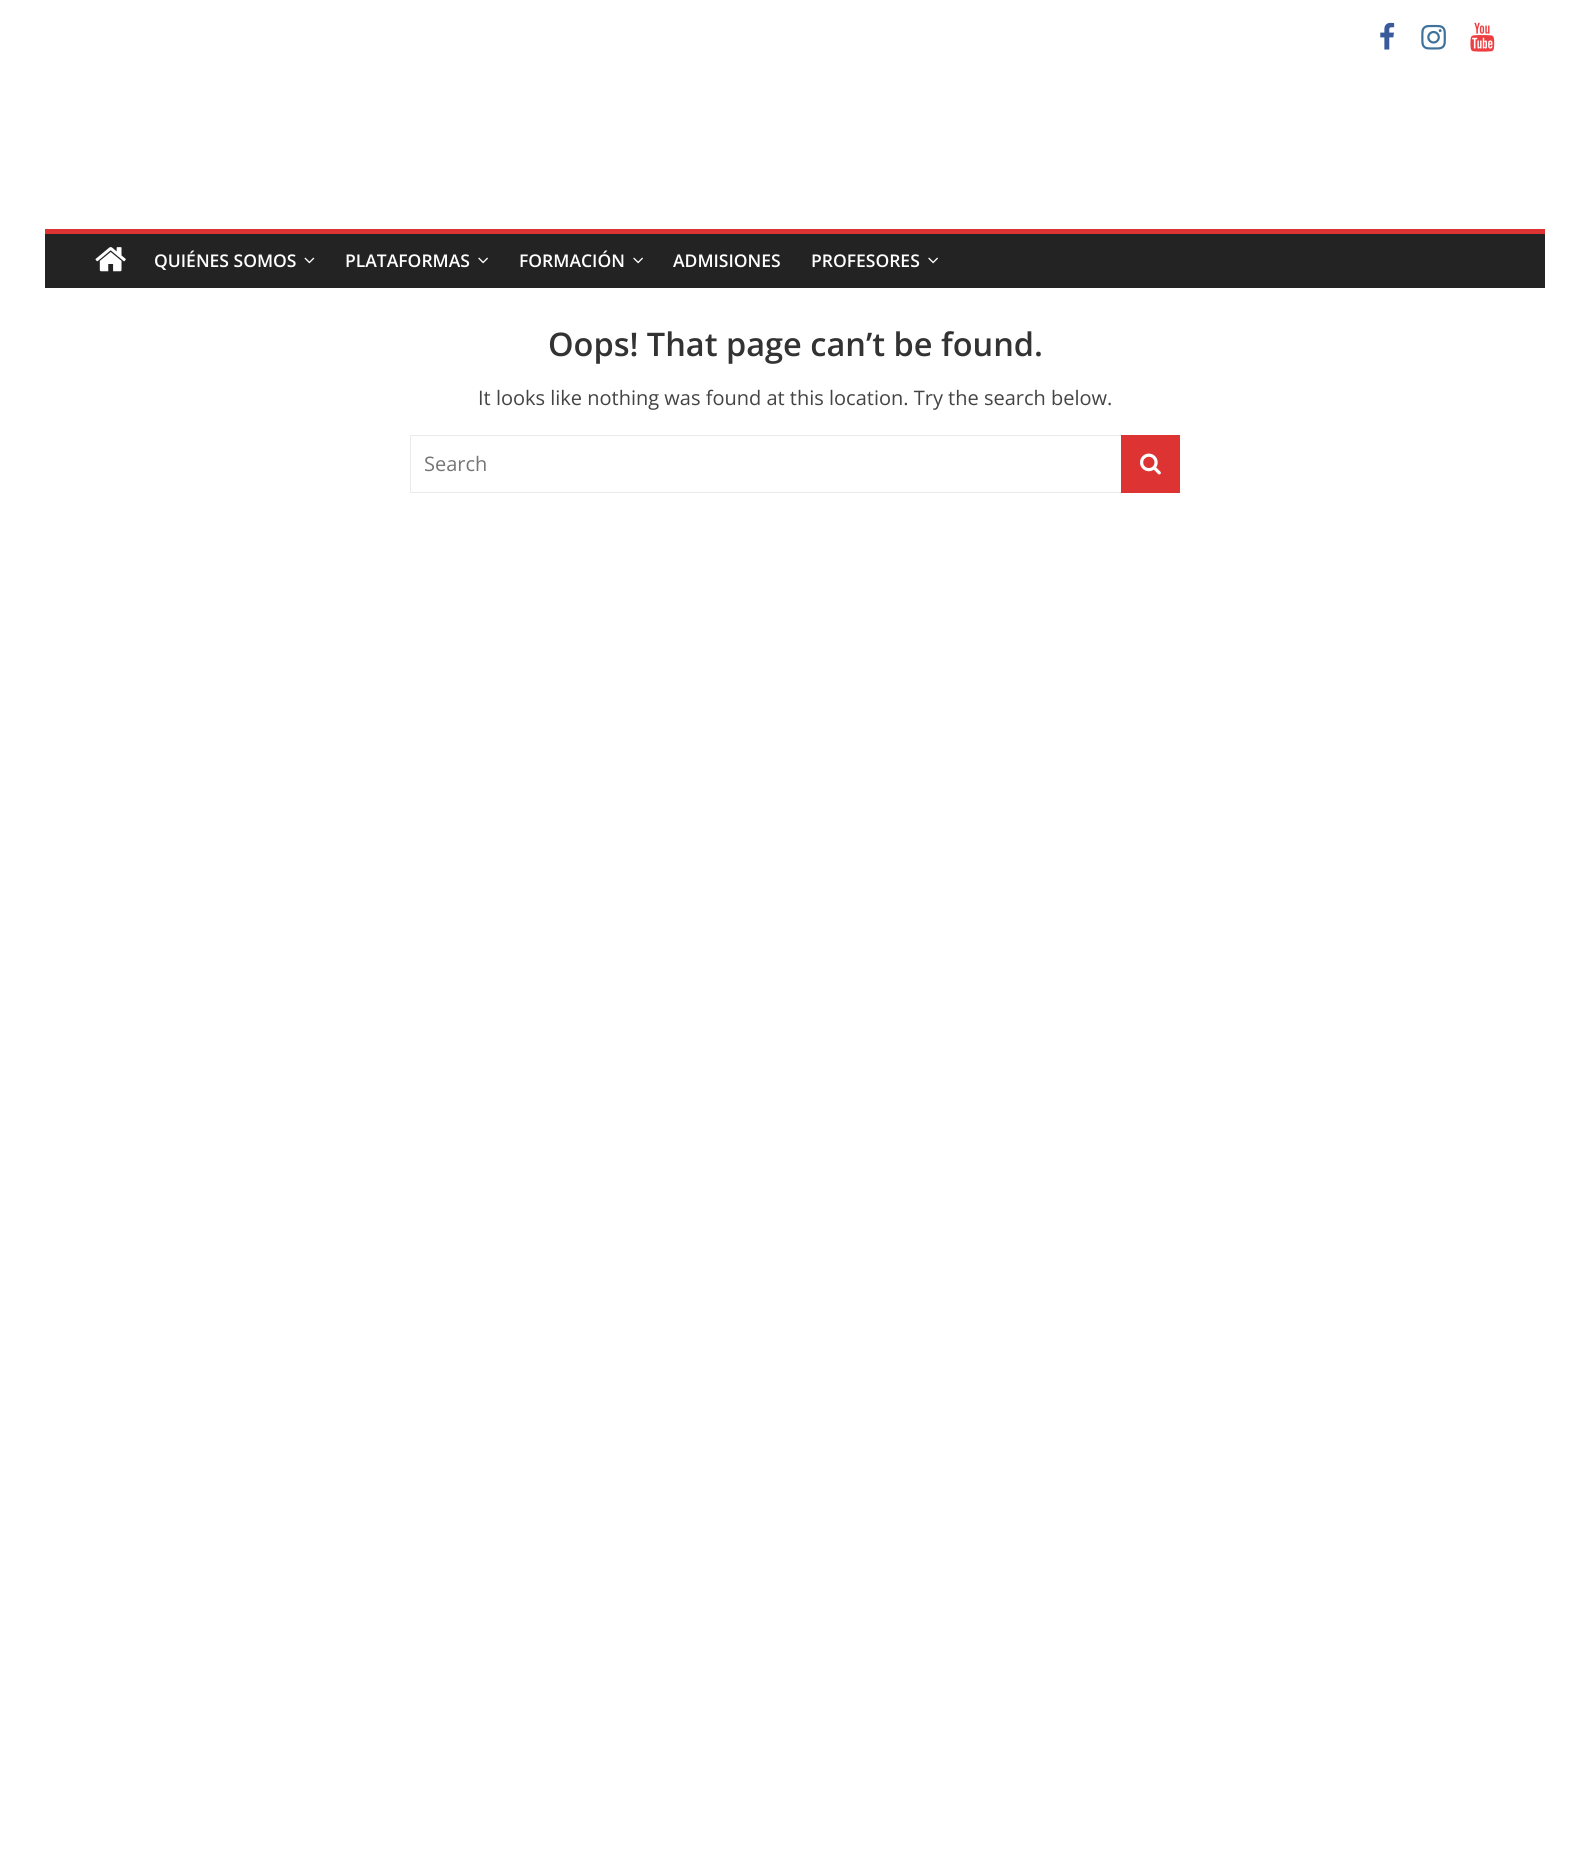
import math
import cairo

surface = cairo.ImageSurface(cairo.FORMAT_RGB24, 1589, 1857)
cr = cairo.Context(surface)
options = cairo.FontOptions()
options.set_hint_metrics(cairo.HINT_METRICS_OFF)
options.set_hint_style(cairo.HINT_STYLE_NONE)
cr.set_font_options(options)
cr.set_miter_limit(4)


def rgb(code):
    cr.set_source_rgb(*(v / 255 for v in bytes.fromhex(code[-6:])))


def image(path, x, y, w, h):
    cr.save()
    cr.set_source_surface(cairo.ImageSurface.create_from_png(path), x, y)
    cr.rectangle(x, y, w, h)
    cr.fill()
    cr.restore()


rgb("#ffffff")
cr.paint()
image("img/1.png", 1380, 22, 15, 28)
image("img/2.png", 1421, 24, 25, 26)
image("img/3.png", 1470, 22, 25, 30)
rgb("#232323")
cr.rectangle(45, 234, 1500, 54)
cr.fill()
rgb("#dd3333")
cr.rectangle(45, 229, 1500, 5)
cr.fill()
image("img/4.png", 95, 247, 31, 25)
image("img/5.png", 304, 257, 11, 7)
image("img/6.png", 478, 257, 10, 7)
image("img/6.png", 633, 257, 10, 7)
image("img/6.png", 928, 257, 10, 7)
cr.rectangle(410.5, 435.5, 712, 57)
rgb("#eaeaea")
cr.set_line_width(1)
cr.stroke()
rgb("#dd3333")
cr.rectangle(1121, 435, 59, 58)
cr.fill()
image("img/7.png", 1140, 453, 21, 22)
cr.select_font_face("Open Sans SemiBold")
cr.set_font_size(17.5)
rgb("#ffffff")
for x, y, s in [
    (154, 267, "QUIÉNES SOMOS"),
    (345, 267, "PLATAFORMAS"),
    (519, 267, "FORMACIÓN"),
    (673, 267, "ADMISIONES"),
    (811, 267, "PROFESORES"),
]:
    cr.move_to(x, y)
    cr.show_text(s)
cr.set_font_size(32.5)
rgb("#333333")
cr.move_to(548, 356)
cr.show_text("Oops! That page can’t be found.")
cr.select_font_face("Open Sans")
cr.set_font_size(20)
rgb("#444444")
cr.move_to(478, 405)
cr.show_text("It looks like nothing was found at this location. Try the search below.")
rgb("#757575")
cr.move_to(424, 471)
cr.show_text("Search")
surface.write_to_png("page.png")
